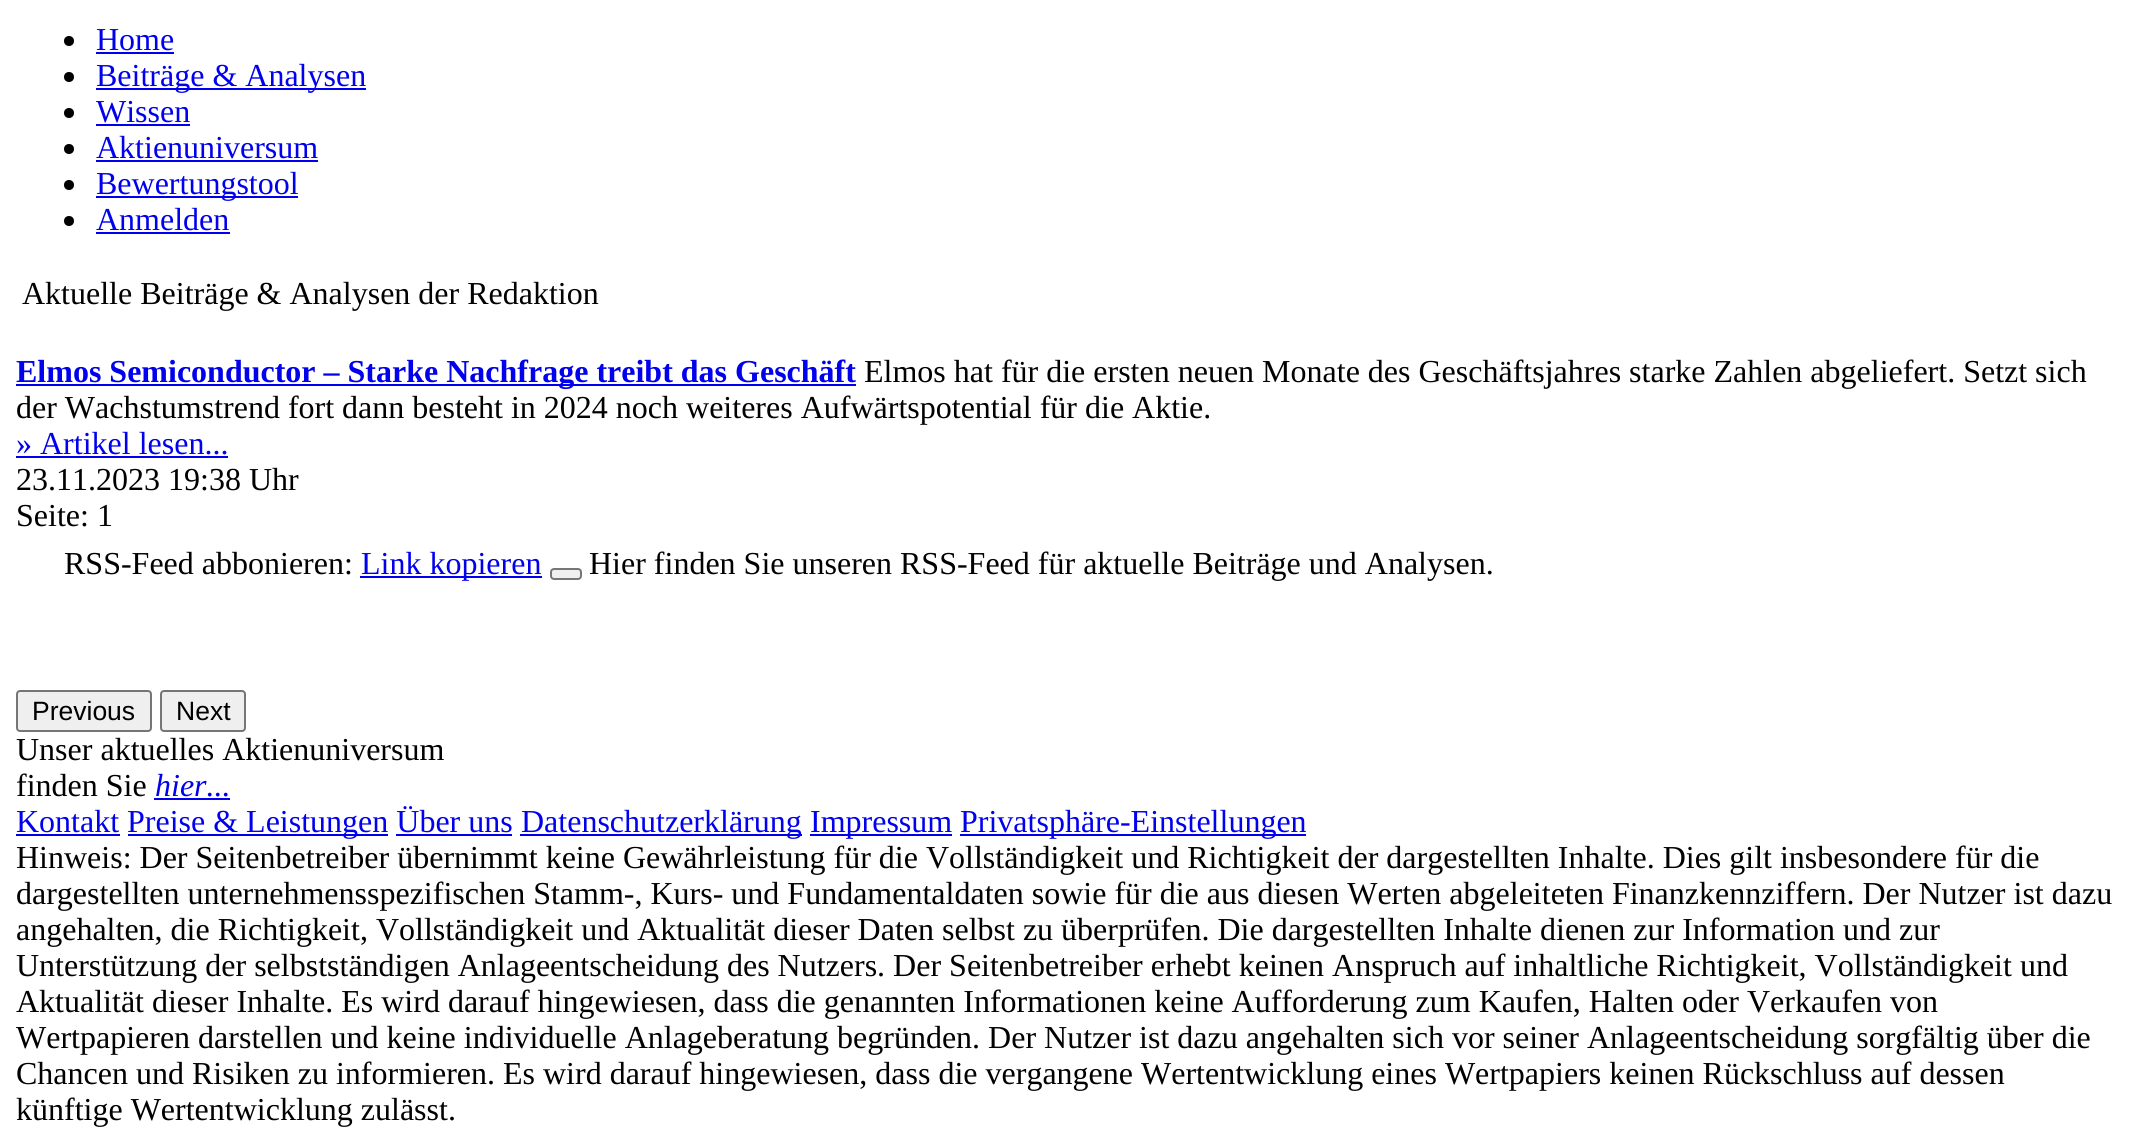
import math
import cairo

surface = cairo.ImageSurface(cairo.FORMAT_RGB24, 2132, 1142)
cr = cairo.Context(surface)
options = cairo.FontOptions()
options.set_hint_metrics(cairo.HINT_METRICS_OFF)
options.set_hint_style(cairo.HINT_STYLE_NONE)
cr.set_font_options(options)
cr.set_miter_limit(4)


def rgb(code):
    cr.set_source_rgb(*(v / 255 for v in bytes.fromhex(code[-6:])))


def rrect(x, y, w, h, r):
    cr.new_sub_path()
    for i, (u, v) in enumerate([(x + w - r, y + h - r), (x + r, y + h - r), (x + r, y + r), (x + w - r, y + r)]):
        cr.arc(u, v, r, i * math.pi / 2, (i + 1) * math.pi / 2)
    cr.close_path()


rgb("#ffffff")
cr.paint()
rgb("#000000")
cr.arc(69, 41, 5, 0, 2 * math.pi)
cr.fill()
rgb("#0000ee")
cr.rectangle(96, 52, 78, 2)
cr.fill()
rgb("#000000")
cr.arc(69, 77, 5, 0, 2 * math.pi)
cr.fill()
rgb("#0000ee")
cr.rectangle(96, 88, 270, 2)
cr.fill()
rgb("#000000")
cr.arc(69, 113, 5, 0, 2 * math.pi)
cr.fill()
rgb("#0000ee")
cr.rectangle(96, 124, 94, 2)
cr.fill()
rgb("#000000")
cr.arc(69, 149, 5, 0, 2 * math.pi)
cr.fill()
rgb("#0000ee")
cr.rectangle(96, 160, 222, 2)
cr.fill()
rgb("#000000")
cr.arc(69, 185, 5, 0, 2 * math.pi)
cr.fill()
rgb("#0000ee")
cr.rectangle(96, 196, 202, 2)
cr.fill()
rgb("#000000")
cr.arc(69, 221, 5, 0, 2 * math.pi)
cr.fill()
for x, y, w, h, color in [
    (96, 232, 134, 2, "#0000ee"),
    (16, 384, 840, 2, "#0000ee"),
    (16, 456, 212, 2, "#0000ee"),
    (360, 576, 182, 2, "#0000ee"),
]:
    rgb(color)
    cr.rectangle(x, y, w, h)
    cr.fill()
rgb("#efefef")
rrect(551, 569, 30, 10, 3)
cr.fill_preserve()
rgb("#767676")
cr.stroke()
rgb("#efefef")
rrect(17, 691, 134, 40, 3)
cr.fill_preserve()
rgb("#767676")
cr.stroke()
rgb("#efefef")
rrect(161, 691, 84, 40, 3)
cr.fill_preserve()
rgb("#767676")
cr.stroke()
for x, y, w, h, color in [
    (154, 798, 76, 2, "#0000ee"),
    (16, 834, 104, 2, "#0000ee"),
    (128, 834, 260, 2, "#0000ee"),
    (520, 834, 282, 2, "#0000ee"),
    (810, 834, 142, 2, "#0000ee"),
    (960, 834, 346, 2, "#0000ee"),
    (396, 834, 116, 2, "#0000ee"),
]:
    rgb(color)
    cr.rectangle(x, y, w, h)
    cr.fill()
cr.select_font_face("Liberation Serif")
cr.set_font_size(32)
for x, y, s in [
    (96, 50, "Home"),
    (96, 86, "Beiträge & Analysen"),
    (96, 122, "Wissen"),
    (96, 158, "Aktienuniversum"),
    (96, 194, "Bewertungstool"),
    (96, 230, "Anmelden"),
]:
    cr.move_to(x, y)
    cr.show_text(s)
rgb("#000000")
cr.move_to(22, 304)
cr.show_text("Aktuelle Beiträge & Analysen der Redaktion")
cr.select_font_face("Liberation Serif", cairo.FONT_SLANT_NORMAL, cairo.FONT_WEIGHT_BOLD)
rgb("#0000ee")
cr.move_to(16, 382)
cr.show_text("Elmos Semiconductor – Starke Nachfrage treibt das Geschäft")
cr.select_font_face("Liberation Serif")
rgb("#000000")
cr.move_to(864, 382)
cr.show_text("Elmos hat für die ersten neuen Monate des Geschäftsjahres starke Zahlen abgeliefert. Setzt sich")
cr.move_to(16, 418)
cr.show_text("der Wachstumstrend fort dann besteht in 2024 noch weiteres Aufwärtspotential für die Aktie.")
rgb("#0000ee")
cr.move_to(16, 454)
cr.show_text("» Artikel lesen...")
rgb("#000000")
for x, y, s in [
    (16, 490, "23.11.2023 19:38 Uhr"),
    (16, 526, "Seite: 1"),
    (64, 574, "RSS-Feed abbonieren:"),
]:
    cr.move_to(x, y)
    cr.show_text(s)
rgb("#0000ee")
cr.move_to(361, 574)
cr.show_text("Link kopieren")
rgb("#000000")
cr.move_to(589, 574)
cr.show_text("Hier finden Sie unseren RSS-Feed für aktuelle Beiträge und Analysen.")
cr.select_font_face("Liberation Sans")
cr.set_font_size(26.5)
cr.move_to(32, 720)
cr.show_text("Previous")
cr.move_to(176, 720)
cr.show_text("Next")
cr.select_font_face("Liberation Serif")
cr.set_font_size(32)
cr.move_to(16, 760)
cr.show_text("Unser aktuelles Aktienuniversum")
cr.move_to(16, 796)
cr.show_text("finden Sie")
cr.select_font_face("Liberation Serif", cairo.FONT_SLANT_ITALIC)
rgb("#0000ee")
cr.move_to(155, 796)
cr.show_text("hier...")
cr.select_font_face("Liberation Serif")
for x, y, s in [
    (16, 832, "Kontakt"),
    (127, 832, "Preise & Leistungen Über uns"),
    (521, 832, "Datenschutzerklärung"),
    (810, 832, "Impressum"),
    (960, 832, "Privatsphäre-Einstellungen"),
]:
    cr.move_to(x, y)
    cr.show_text(s)
rgb("#000000")
for x, y, s in [
    (16, 868, "Hinweis: Der Seitenbetreiber übernimmt keine Gewährleistung für die Vollständigkeit und Richtigkeit der dargestellten Inhalte. Dies gilt insbesondere für die"),
    (16, 904, "dargestellten unternehmensspezifischen Stamm-, Kurs- und Fundamentaldaten sowie für die aus diesen Werten abgeleiteten Finanzkennziffern. Der Nutzer ist dazu"),
    (16, 940, "angehalten, die Richtigkeit, Vollständigkeit und Aktualität dieser Daten selbst zu überprüfen. Die dargestellten Inhalte dienen zur Information und zur"),
    (16, 976, "Unterstützung der selbstständigen Anlageentscheidung des Nutzers. Der Seitenbetreiber erhebt keinen Anspruch auf inhaltliche Richtigkeit, Vollständigkeit und"),
    (16, 1012, "Aktualität dieser Inhalte. Es wird darauf hingewiesen, dass die genannten Informationen keine Aufforderung zum Kaufen, Halten oder Verkaufen von"),
    (16, 1048, "Wertpapieren darstellen und keine individuelle Anlageberatung begründen. Der Nutzer ist dazu angehalten sich vor seiner Anlageentscheidung sorgfältig über die"),
    (16, 1084, "Chancen und Risiken zu informieren. Es wird darauf hingewiesen, dass die vergangene Wertentwicklung eines Wertpapiers keinen Rückschluss auf dessen"),
    (16, 1120, "künftige Wertentwicklung zulässt."),
]:
    cr.move_to(x, y)
    cr.show_text(s)
surface.write_to_png("page.png")
